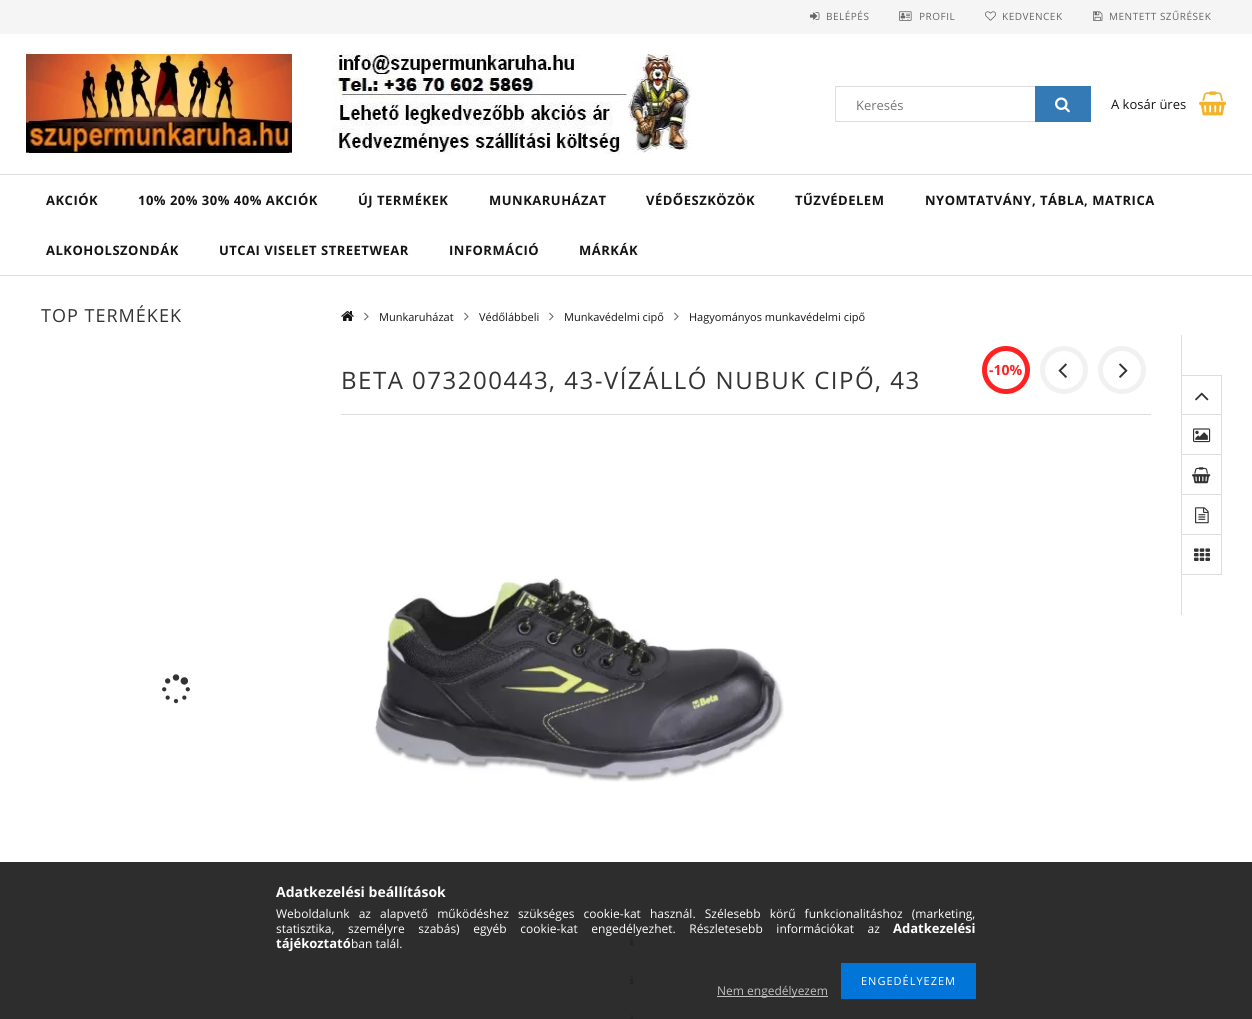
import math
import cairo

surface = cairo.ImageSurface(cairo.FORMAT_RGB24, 1252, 1019)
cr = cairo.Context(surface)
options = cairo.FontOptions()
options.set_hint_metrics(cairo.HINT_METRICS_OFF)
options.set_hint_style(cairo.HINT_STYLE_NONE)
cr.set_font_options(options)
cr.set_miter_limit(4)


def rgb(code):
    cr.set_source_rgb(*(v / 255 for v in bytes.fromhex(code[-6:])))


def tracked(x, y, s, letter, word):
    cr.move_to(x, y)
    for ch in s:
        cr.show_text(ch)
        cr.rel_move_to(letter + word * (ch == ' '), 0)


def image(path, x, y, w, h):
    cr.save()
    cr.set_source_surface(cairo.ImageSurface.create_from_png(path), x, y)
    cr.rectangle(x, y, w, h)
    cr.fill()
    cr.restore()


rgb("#ffffff")
cr.paint()
rgb("#2d2d2d")
cr.rectangle(0, 862, 1252, 157)
cr.fill()
rgb("#f5f5f5")
cr.rectangle(0, 0, 1252, 34)
cr.fill()
image("img/1.png", 810, 12, 10, 8)
image("img/2.png", 899, 11, 13, 10)
image("img/3.png", 985, 11, 11, 10)
image("img/4.png", 1093, 11, 10, 10)
image("img/5.png", 26, 54, 266, 100)
image("img/6.png", 332, 54, 360, 100)
cr.rectangle(835.5, 86.5, 255, 35)
rgb("#dddddd")
cr.set_line_width(1)
cr.stroke()
rgb("#337ab7")
cr.rectangle(1035, 86, 56, 36)
cr.fill()
image("img/7.png", 1055, 97, 15, 16)
image("img/8.png", 1199, 91, 27, 25)
rgb("#dddddd")
cr.rectangle(0, 174, 1252, 1)
cr.fill()
cr.rectangle(0, 275, 1252, 1)
cr.fill()
image("img/9.png", 162, 674, 28, 30)
image("img/10.png", 341, 311, 13, 10)
image("img/11.png", 364, 312, 5, 9)
image("img/11.png", 464, 312, 5, 9)
image("img/11.png", 549, 312, 5, 9)
image("img/11.png", 674, 312, 5, 9)
cr.rectangle(341, 414, 810, 1)
cr.fill()
cr.arc(1006, 370, 21.5, 0, 2 * math.pi)
rgb("#ff2222")
cr.set_line_width(5)
cr.stroke()
cr.arc(1064, 370, 21.5, 0, 2 * math.pi)
rgb("#f1f1f1")
cr.stroke()
image("img/12.png", 1058, 363, 9, 15)
cr.arc(1122, 370, 21.5, 0, 2 * math.pi)
cr.stroke()
image("img/13.png", 1119, 363, 9, 15)
image("img/14.png", 374, 576, 410, 206)
image("img/15.png", 630, 937, 4, 8)
image("img/16.png", 630, 976, 4, 8)
image("img/17.png", 630, 1015, 3, 4)
for x, y, w, h, color in [
    (1181, 335, 1, 280, "#dddddd"),
    (1182, 375, 40, 1, "#dddddd"),
    (1221, 375, 1, 200, "#dddddd"),
    (1182, 414, 40, 1, "#dddddd"),
]:
    rgb(color)
    cr.rectangle(x, y, w, h)
    cr.fill()
image("img/18.png", 1195, 392, 14, 9)
cr.rectangle(1182, 454, 40, 1)
cr.fill()
image("img/19.png", 1193, 428, 18, 15)
cr.rectangle(1182, 494, 40, 1)
cr.fill()
image("img/20.png", 1192, 467, 19, 17)
cr.rectangle(1182, 534, 40, 1)
cr.fill()
image("img/21.png", 1195, 507, 14, 17)
cr.rectangle(1182, 574, 40, 1)
cr.fill()
image("img/22.png", 1194, 548, 16, 13)
rgb("#0275d8")
cr.rectangle(841, 963, 135, 36)
cr.fill()
rgb("#c0c0c0")
cr.rectangle(717, 996, 111, 1)
cr.fill()
cr.select_font_face("Open Sans")
cr.set_font_size(10)
rgb("#666666")
for x, y, s in [
    (826, 20, "BELÉPÉS"),
    (919, 20, "PROFIL"),
    (1002, 20, "KEDVENCEK"),
    (1109, 20, "MENTETT SZŰRÉSEK"),
]:
    tracked(x, y, s, 0.5, 0)
cr.set_font_size(13)
rgb("#757575")
cr.move_to(856, 110)
cr.show_text("Keresés")
rgb("#141414")
cr.move_to(1111, 109)
cr.show_text("A kosár üres")
cr.select_font_face("Open Sans", cairo.FONT_SLANT_NORMAL, cairo.FONT_WEIGHT_BOLD)
for x, y, s in [
    (46, 205, "AKCIÓK"),
    (138, 205, "10% 20% 30% 40% AKCIÓK"),
    (358, 205, "ÚJ TERMÉKEK"),
    (489, 205, "MUNKARUHÁZAT"),
    (646, 205, "VÉDŐESZKÖZÖK"),
    (795, 205, "TŰZVÉDELEM"),
    (925, 205, "NYOMTATVÁNY, TÁBLA, MATRICA"),
    (46, 255, "ALKOHOLSZONDÁK"),
    (219, 255, "UTCAI VISELET STREETWEAR"),
    (449, 255, "INFORMÁCIÓ"),
    (579, 255, "MÁRKÁK"),
]:
    tracked(x, y, s, 0.5, 0)
cr.select_font_face("Open Sans")
cr.set_font_size(18)
rgb("#333333")
tracked(41, 322, "TOP TERMÉKEK", 1, 0)
cr.set_font_size(11)
rgb("#141414")
for x, y, s in [
    (379, 321, "Munkaruházat"),
    (479, 321, "Védőlábbeli"),
    (564, 321, "Munkavédelmi cipő"),
    (689, 321, "Hagyományos munkavédelmi cipő"),
]:
    cr.move_to(x, y)
    cr.show_text(s)
cr.set_font_size(24)
rgb("#333333")
tracked(341, 389, "BETA 073200443, 43-VÍZÁLLÓ NUBUK CIPŐ, 43", 1.5, 0)
cr.select_font_face("Open Sans", cairo.FONT_SLANT_NORMAL, cairo.FONT_WEIGHT_BOLD)
cr.set_font_size(14)
rgb("#ff2222")
cr.move_to(989, 375)
cr.show_text("-10%")
rgb("#ffffff")
cr.move_to(276, 897)
cr.show_text("Adatkezelési beállítások")
cr.select_font_face("Open Sans")
cr.set_font_size(12)
tracked(276, 918, "Weboldalunk az alapvető működéshez szükséges cookie-kat használ. Szélesebb körű funkcionalitáshoz (marketing,", 0, 6)
tracked(276, 933, "statisztika, személyre szabás) egyéb cookie-kat engedélyezhet. Részletesebb információkat az", 0, 10.5)
cr.select_font_face("Open Sans", cairo.FONT_SLANT_NORMAL, cairo.FONT_WEIGHT_BOLD)
cr.set_font_size(13)
cr.move_to(893, 933)
cr.show_text("Adatkezelési")
cr.move_to(276, 948)
cr.show_text("tájékoztató")
cr.select_font_face("Open Sans")
cr.set_font_size(12)
cr.move_to(351, 948)
cr.show_text("ban talál.")
cr.set_font_size(11)
tracked(861, 985, "ENGEDÉLYEZEM", 1, 0)
cr.set_font_size(12)
rgb("#c0c0c0")
cr.move_to(717, 995)
cr.show_text("Nem engedélyezem")
surface.write_to_png("page.png")
